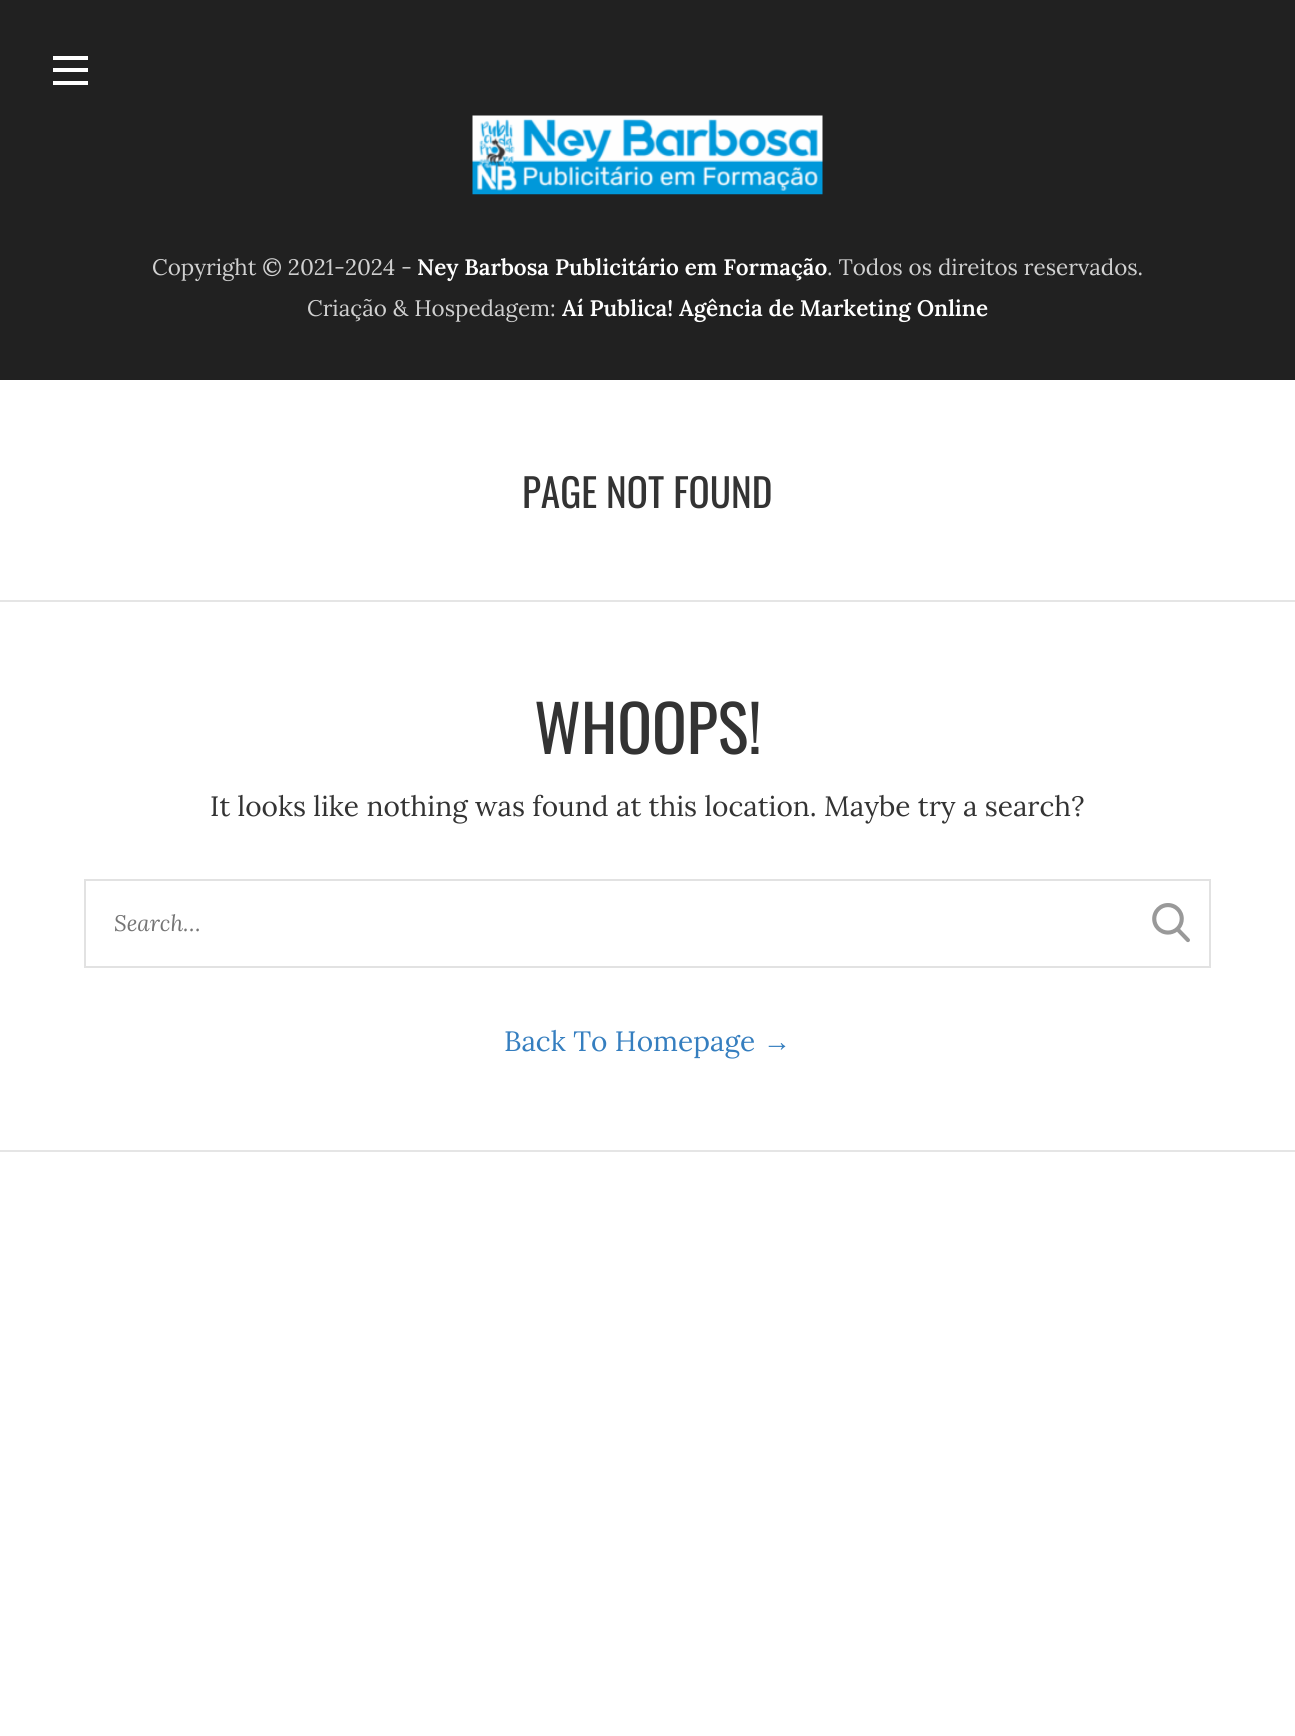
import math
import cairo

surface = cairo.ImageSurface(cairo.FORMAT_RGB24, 1295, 1736)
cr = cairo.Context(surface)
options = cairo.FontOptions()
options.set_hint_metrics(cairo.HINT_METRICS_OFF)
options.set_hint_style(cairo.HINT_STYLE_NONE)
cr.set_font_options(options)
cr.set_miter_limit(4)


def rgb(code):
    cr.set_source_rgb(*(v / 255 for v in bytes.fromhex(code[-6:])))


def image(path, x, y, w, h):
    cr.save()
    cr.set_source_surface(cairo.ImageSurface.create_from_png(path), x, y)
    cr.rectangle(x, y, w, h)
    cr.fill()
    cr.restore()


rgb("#ffffff")
cr.paint()
for x, y, w, h, color in [
    (0, 0, 1295, 380, "#212121"),
    (53, 68, 35, 4, "#ffffff"),
    (53, 56, 35, 4, "#ffffff"),
    (53, 81, 35, 4, "#ffffff"),
]:
    rgb(color)
    cr.rectangle(x, y, w, h)
    cr.fill()
image("img/1.png", 472, 115, 351, 80)
rgb("#e5e5e5")
cr.rectangle(0, 1150, 1295, 2)
cr.fill()
cr.rectangle(0, 600, 1295, 2)
cr.fill()
cr.rectangle(85, 880, 1125, 87)
rgb("#e2e2e2")
cr.stroke()
image("img/2.png", 1152, 903, 38, 40)
cr.select_font_face("Lora")
cr.set_font_size(22.4)
rgb("#d0d0d0")
cr.move_to(152, 275)
cr.show_text("Copyright © 2021-2024 -")
cr.select_font_face("Lora SemiBold")
rgb("#ffffff")
cr.move_to(417, 275)
cr.show_text("Ney Barbosa Publicitário em Formação")
cr.select_font_face("Lora")
rgb("#d0d0d0")
cr.move_to(827, 275)
cr.show_text(". Todos os direitos reservados.")
cr.move_to(307, 316)
cr.show_text("Criação & Hospedagem:")
cr.select_font_face("Lora SemiBold")
rgb("#ffffff")
cr.move_to(562, 316)
cr.show_text("Aí Publica! Agência de Marketing Online")
cr.select_font_face("Oswald")
cr.set_font_size(39.25)
rgb("#333333")
cr.move_to(522, 508)
cr.show_text("PAGE NOT FOUND")
cr.set_font_size(64.5)
cr.move_to(534, 754)
cr.show_text("WHOOPS!")
cr.select_font_face("Lora")
cr.set_font_size(28)
cr.move_to(210, 816)
cr.show_text("It looks like nothing was found at this location. Maybe try a search?")
cr.select_font_face("Lora", cairo.FONT_SLANT_ITALIC)
cr.set_font_size(22.4)
rgb("#757575")
cr.move_to(114, 931)
cr.show_text("Search…")
cr.select_font_face("Lora")
cr.set_font_size(28)
rgb("#357ebf")
cr.move_to(504, 1051)
cr.show_text("Back To Homepage")
cr.select_font_face("Liberation Serif")
cr.move_to(763, 1051)
cr.show_text("→")
surface.write_to_png("page.png")
